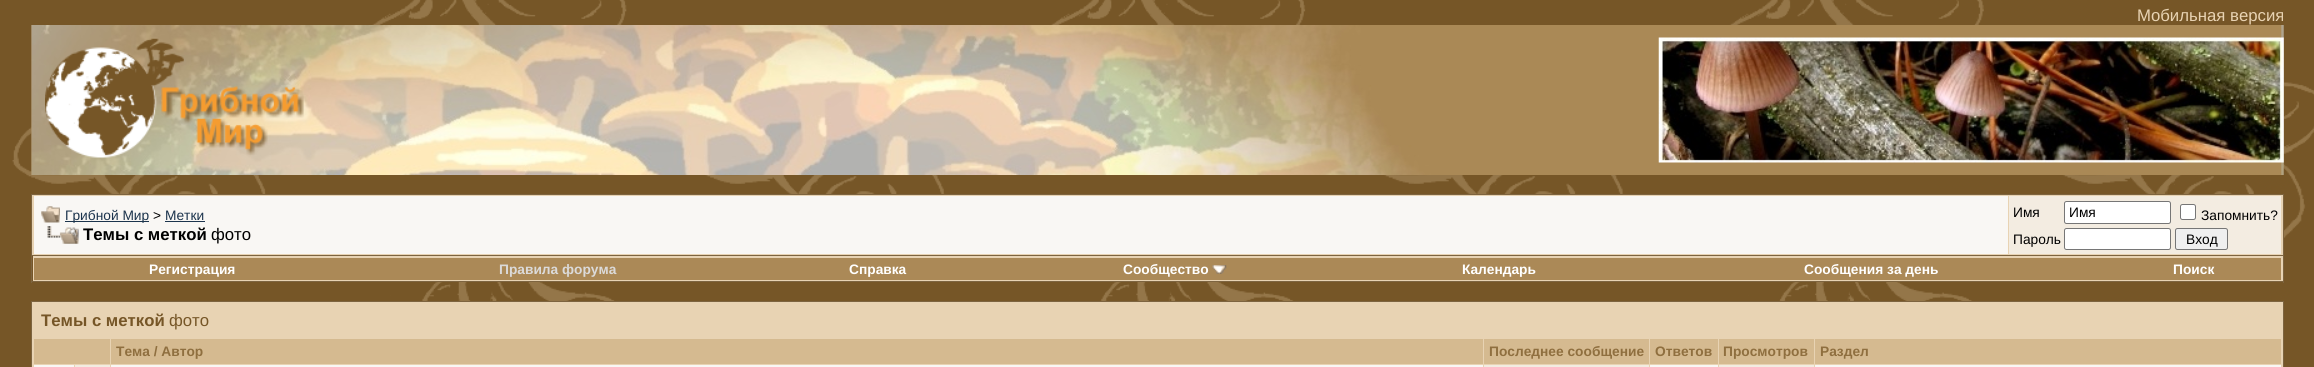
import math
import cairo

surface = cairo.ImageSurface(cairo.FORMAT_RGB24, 2314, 367)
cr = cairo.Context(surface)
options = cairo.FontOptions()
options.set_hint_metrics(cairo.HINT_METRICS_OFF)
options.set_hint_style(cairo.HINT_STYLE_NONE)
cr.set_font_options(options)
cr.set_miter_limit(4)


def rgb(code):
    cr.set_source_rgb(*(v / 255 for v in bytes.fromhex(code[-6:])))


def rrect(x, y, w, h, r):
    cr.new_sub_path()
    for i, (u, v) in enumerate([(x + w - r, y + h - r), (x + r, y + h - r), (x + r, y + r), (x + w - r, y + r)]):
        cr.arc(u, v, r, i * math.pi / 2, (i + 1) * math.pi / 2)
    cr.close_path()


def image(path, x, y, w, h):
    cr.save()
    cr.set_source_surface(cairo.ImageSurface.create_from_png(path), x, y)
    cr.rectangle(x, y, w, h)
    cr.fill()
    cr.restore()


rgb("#765627")
cr.paint()
image("img/1.png", 12, 0, 2302, 367)
image("img/2.png", 31, 25, 2253, 150)
image("img/3.png", 45, 38, 259, 120)
image("img/4.png", 1658, 37, 626, 126)
rgb("#e8d3b3")
cr.rectangle(31.5, 194.5, 2252, 61)
cr.fill_preserve()
rgb("#7d6440")
cr.set_line_width(1)
cr.stroke()
rgb("#f9f7f4")
cr.rectangle(34, 196, 1974, 58)
cr.fill()
image("img/5.png", 41, 206, 19, 17)
rgb("#1c344d")
cr.rectangle(65, 221, 84, 1)
cr.fill()
cr.rectangle(165, 221, 40, 1)
cr.fill()
image("img/6.png", 47, 226, 32, 18)
rgb("#f3ece1")
cr.rectangle(2009, 196, 272, 58)
cr.fill()
rgb("#ffffff")
rrect(2064.5, 201.5, 106, 22, 2)
cr.fill_preserve()
rgb("#767676")
cr.stroke()
rgb("#ffffff")
rrect(2180.5, 204.5, 15, 15, 2)
cr.fill_preserve()
rgb("#767676")
cr.stroke()
rgb("#ffffff")
rrect(2064.5, 228.5, 106, 21, 2)
cr.fill_preserve()
rgb("#767676")
cr.stroke()
rgb("#efefef")
rrect(2175.5, 228.5, 52, 21, 2)
cr.fill_preserve()
rgb("#767676")
cr.stroke()
for x, y, w, h, color in [
    (33, 256, 2250, 25, "#e8d3b3"),
    (2283, 256, 1, 27, "#7d6440"),
    (31, 281, 2253, 1, "#7d6440"),
    (31, 256, 1, 27, "#7d6440"),
    (34, 258, 2247, 22, "#ab8957"),
]:
    rgb(color)
    cr.rectangle(x, y, w, h)
    cr.fill()
image("img/7.png", 1212, 265, 15, 9)
rgb("#e8d3b3")
cr.rectangle(31.5, 301.5, 2252, 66)
cr.fill_preserve()
rgb("#7d6440")
cr.stroke()
for x, y, w, h, color in [
    (34, 339, 76, 25, "#d5ba90"),
    (111, 339, 1372, 25, "#d5ba90"),
    (1484, 339, 165, 25, "#d5ba90"),
    (1650, 339, 68, 25, "#d5ba90"),
    (1719, 339, 95, 25, "#d5ba90"),
    (1815, 339, 466, 25, "#d5ba90"),
    (34, 365, 40, 2, "#f9f7f4"),
    (75, 365, 35, 2, "#f3ece1"),
    (111, 365, 1372, 2, "#f9f7f4"),
    (1484, 365, 165, 2, "#f3ece1"),
    (1650, 365, 68, 2, "#f9f7f4"),
    (1719, 365, 95, 2, "#f3ece1"),
    (1815, 365, 466, 2, "#f9f7f4"),
]:
    rgb(color)
    cr.rectangle(x, y, w, h)
    cr.fill()
cr.select_font_face("Liberation Sans")
cr.set_font_size(16.75)
rgb("#e8d3b3")
cr.move_to(2137, 21)
cr.show_text("Мобильная версия")
cr.set_font_size(13.75)
rgb("#1c344d")
cr.move_to(65, 220)
cr.show_text("Грибной Мир")
rgb("#000000")
cr.move_to(153, 220)
cr.show_text(">")
rgb("#1c344d")
cr.move_to(165, 220)
cr.show_text("Метки")
cr.select_font_face("Liberation Sans", cairo.FONT_SLANT_NORMAL, cairo.FONT_WEIGHT_BOLD)
cr.set_font_size(16.75)
rgb("#000000")
cr.move_to(83, 240)
cr.show_text("Темы с меткой")
cr.select_font_face("Liberation Sans")
cr.move_to(211, 240)
cr.show_text("фото")
cr.set_font_size(13.75)
for x, y, s in [
    (2013, 217, "Имя"),
    (2069, 217, "Имя"),
    (2201, 220, "Запомнить?"),
    (2013, 244, "Пароль"),
    (2186, 244, "Вход"),
]:
    cr.move_to(x, y)
    cr.show_text(s)
cr.select_font_face("Liberation Sans", cairo.FONT_SLANT_NORMAL, cairo.FONT_WEIGHT_BOLD)
rgb("#ffffff")
cr.move_to(149, 274)
cr.show_text("Регистрация")
rgb("#dbdada")
cr.move_to(499, 274)
cr.show_text("Правила форума")
rgb("#ffffff")
for x, y, s in [
    (849, 274, "Справка"),
    (1123, 274, "Сообщество"),
    (1462, 274, "Календарь"),
    (1804, 274, "Сообщения за день"),
    (2173, 274, "Поиск"),
]:
    cr.move_to(x, y)
    cr.show_text(s)
cr.set_font_size(16.75)
rgb("#765627")
cr.move_to(41, 326)
cr.show_text("Темы с меткой")
cr.select_font_face("Liberation Sans")
cr.move_to(169, 326)
cr.show_text("фото")
cr.select_font_face("Liberation Sans", cairo.FONT_SLANT_NORMAL, cairo.FONT_WEIGHT_BOLD)
cr.set_font_size(13.75)
rgb("#8f6f3f")
for x, y, s in [
    (116, 356, "Тема / Автор"),
    (1489, 356, "Последнее сообщение"),
    (1655, 356, "Ответов"),
    (1723, 356, "Просмотров"),
    (1820, 356, "Раздел"),
]:
    cr.move_to(x, y)
    cr.show_text(s)
surface.write_to_png("page.png")
